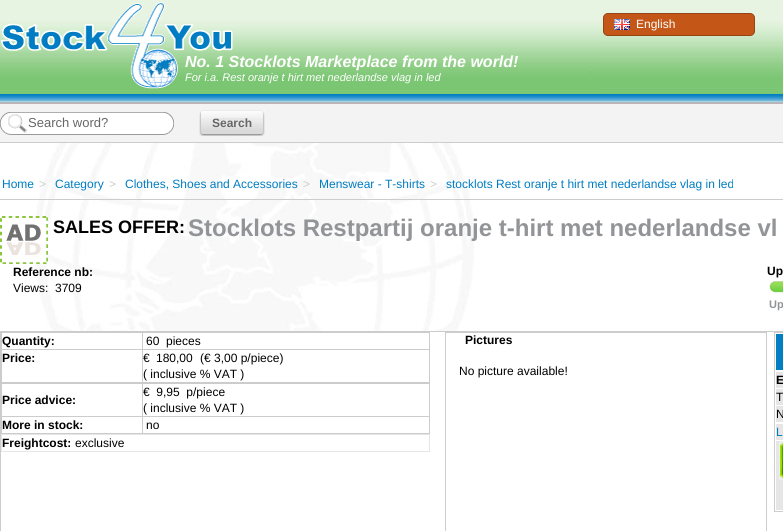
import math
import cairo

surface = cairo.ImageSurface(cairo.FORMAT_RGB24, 783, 531)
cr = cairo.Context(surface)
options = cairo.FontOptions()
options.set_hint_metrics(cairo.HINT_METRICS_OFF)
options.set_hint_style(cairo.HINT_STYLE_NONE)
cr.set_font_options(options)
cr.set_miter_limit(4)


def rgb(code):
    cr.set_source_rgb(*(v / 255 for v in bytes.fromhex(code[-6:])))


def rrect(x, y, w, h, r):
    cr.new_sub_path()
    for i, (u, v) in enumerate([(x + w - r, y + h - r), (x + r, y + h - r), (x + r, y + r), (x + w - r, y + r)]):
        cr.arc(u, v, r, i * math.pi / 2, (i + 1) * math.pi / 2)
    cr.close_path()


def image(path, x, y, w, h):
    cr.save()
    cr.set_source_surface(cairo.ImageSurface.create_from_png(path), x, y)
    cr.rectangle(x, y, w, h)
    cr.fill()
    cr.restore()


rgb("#ffffff")
cr.paint()
image("img/1.png", 35, 143, 439, 188)
image("img/6.png", 0, 0, 783, 104)
rgb("#c45618")
rrect(603.5, 13.5, 151, 22, 4.5)
cr.fill_preserve()
rgb("#964315")
cr.set_line_width(1)
cr.stroke()
image("img/2.png", 614, 19, 16, 11)
rgb("#cccccc")
cr.rectangle(0, 199, 783, 1)
cr.fill()
image("img/3.png", 0, 216, 48, 48)
image("img/4.png", 769, 281, 14, 12)
cr.rectangle(0.5, 331.5, 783, 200)
cr.stroke()
for x, y, w, h, color in [
    (1, 332, 429, 102, "#cccccc"),
    (2, 333, 140, 16, "#ffffff"),
    (143, 333, 286, 16, "#ffffff"),
    (2, 350, 140, 32, "#ffffff"),
    (143, 350, 286, 32, "#ffffff"),
    (2, 384, 140, 32, "#ffffff"),
    (143, 384, 286, 32, "#ffffff"),
    (2, 417, 140, 16, "#ffffff"),
    (143, 417, 286, 16, "#ffffff"),
    (1, 434, 429, 18, "#e6e6e6"),
    (2, 435, 427, 16, "#ffffff"),
]:
    rgb(color)
    cr.rectangle(x, y, w, h)
    cr.fill()
cr.rectangle(445.5, 332.5, 321, 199)
rgb("#cccccc")
cr.stroke()
cr.rectangle(774.5, 332.5, 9, 179)
cr.stroke()
for x, y, w, h, color in [
    (776, 334, 7, 36, "#037ec2"),
    (776, 372, 7, 16, "#e6e6e6"),
    (776, 389, 7, 16, "#e6e6e6"),
    (776, 406, 7, 16, "#e6e6e6"),
    (776, 424, 7, 16, "#e6e6e6"),
    (776, 441, 7, 69, "#e6e6e6"),
]:
    rgb(color)
    cr.rectangle(x, y, w, h)
    cr.fill()
image("img/5.png", 779, 441, 4, 39)
image("img/7.png", 0, 1, 600, 88)
rgb("#f3f3f3")
cr.rectangle(0, 104, 783, 38)
cr.fill()
rgb("#cccccc")
cr.rectangle(0, 142, 783, 1)
cr.fill()
image("img/8.png", 0, 112, 164, 23)
image("img/9.png", 164, 112, 10, 23)
image("img/10.png", 199, 110, 66, 26)
cr.select_font_face("Liberation Sans")
cr.set_font_size(12)
rgb("#ffffff")
cr.move_to(636, 28)
cr.show_text("English")
rgb("#007dc2")
cr.move_to(2, 188)
cr.show_text("Home")
rgb("#cccccc")
cr.move_to(39, 188)
cr.show_text(">")
rgb("#007dc2")
cr.move_to(55, 188)
cr.show_text("Category")
rgb("#cccccc")
cr.move_to(109, 188)
cr.show_text(">")
rgb("#007dc2")
cr.move_to(125, 188)
cr.show_text("Clothes, Shoes and Accessories")
rgb("#cccccc")
cr.move_to(303, 188)
cr.show_text(">")
rgb("#007dc2")
cr.move_to(319, 188)
cr.show_text("Menswear - T-shirts")
rgb("#cccccc")
cr.move_to(430, 188)
cr.show_text(">")
rgb("#007dc2")
cr.move_to(446, 188)
cr.show_text("stocklots Rest oranje t hirt met nederlandse vlag in led")
cr.select_font_face("Liberation Sans", cairo.FONT_SLANT_NORMAL, cairo.FONT_WEIGHT_BOLD)
cr.set_font_size(18)
rgb("#000000")
cr.move_to(53, 233)
cr.show_text("SALES OFFER:")
cr.set_font_size(24)
rgb("#929497")
cr.move_to(188, 236)
cr.show_text("Stocklots Restpartij oranje t-hirt met nederlandse vl")
cr.set_font_size(12)
rgb("#000000")
cr.move_to(13, 276)
cr.show_text("Reference nb:")
cr.select_font_face("Liberation Sans")
cr.move_to(13, 292)
cr.show_text("Views:")
cr.move_to(55, 292)
cr.show_text("3709")
cr.select_font_face("Liberation Sans", cairo.FONT_SLANT_NORMAL, cairo.FONT_WEIGHT_BOLD)
cr.move_to(767, 275)
cr.show_text("Up")
cr.set_font_size(11)
rgb("#929497")
cr.move_to(769, 308)
cr.show_text("Up")
cr.set_font_size(12)
rgb("#000000")
cr.move_to(2, 345)
cr.show_text("Quantity:")
cr.select_font_face("Liberation Sans")
cr.move_to(146, 345)
cr.show_text("60  pieces")
cr.select_font_face("Liberation Sans", cairo.FONT_SLANT_NORMAL, cairo.FONT_WEIGHT_BOLD)
cr.move_to(2, 362)
cr.show_text("Price:")
cr.select_font_face("Liberation Sans")
for x, y, s in [
    (143, 362, "€"),
    (156, 362, "180,00"),
    (200, 362, "(€ 3,00 p/piece)"),
    (143, 378, "( inclusive % VAT )"),
]:
    cr.move_to(x, y)
    cr.show_text(s)
cr.select_font_face("Liberation Sans", cairo.FONT_SLANT_NORMAL, cairo.FONT_WEIGHT_BOLD)
cr.move_to(2, 404)
cr.show_text("Price advice:")
cr.select_font_face("Liberation Sans")
cr.move_to(143, 396)
cr.show_text("€  9,95  p/piece")
cr.move_to(143, 412)
cr.show_text("( inclusive % VAT )")
cr.select_font_face("Liberation Sans", cairo.FONT_SLANT_NORMAL, cairo.FONT_WEIGHT_BOLD)
cr.move_to(2, 429)
cr.show_text("More in stock:")
cr.select_font_face("Liberation Sans")
cr.move_to(146, 429)
cr.show_text("no")
cr.select_font_face("Liberation Sans", cairo.FONT_SLANT_NORMAL, cairo.FONT_WEIGHT_BOLD)
cr.move_to(2, 447)
cr.show_text("Freightcost:")
cr.select_font_face("Liberation Sans")
cr.move_to(75, 447)
cr.show_text("exclusive")
cr.select_font_face("Liberation Sans", cairo.FONT_SLANT_NORMAL, cairo.FONT_WEIGHT_BOLD)
cr.move_to(465, 344)
cr.show_text("Pictures")
cr.select_font_face("Liberation Sans")
cr.move_to(459, 375)
cr.show_text("No picture available!")
cr.select_font_face("Liberation Sans", cairo.FONT_SLANT_NORMAL, cairo.FONT_WEIGHT_BOLD)
cr.move_to(776, 384)
cr.show_text("E")
cr.select_font_face("Liberation Sans")
cr.move_to(776, 401)
cr.show_text("T")
cr.move_to(776, 418)
cr.show_text("N")
rgb("#007dc2")
cr.move_to(776, 436)
cr.show_text("L")
cr.select_font_face("Liberation Sans", cairo.FONT_SLANT_ITALIC, cairo.FONT_WEIGHT_BOLD)
cr.set_font_size(16)
rgb("#ffffff")
cr.move_to(185, 67)
cr.show_text("No. 1 Stocklots Marketplace from the world!")
cr.select_font_face("Liberation Sans", cairo.FONT_SLANT_ITALIC)
cr.set_font_size(11)
cr.move_to(185, 81)
cr.show_text("For i.a. Rest oranje t hirt met nederlandse vlag in led")
cr.select_font_face("Liberation Sans")
cr.set_font_size(13)
rgb("#666666")
cr.move_to(28, 127)
cr.show_text("Search word?")
cr.select_font_face("Liberation Sans", cairo.FONT_SLANT_NORMAL, cairo.FONT_WEIGHT_BOLD)
cr.set_font_size(12)
cr.move_to(212, 127)
cr.show_text("Search")
surface.write_to_png("page.png")
